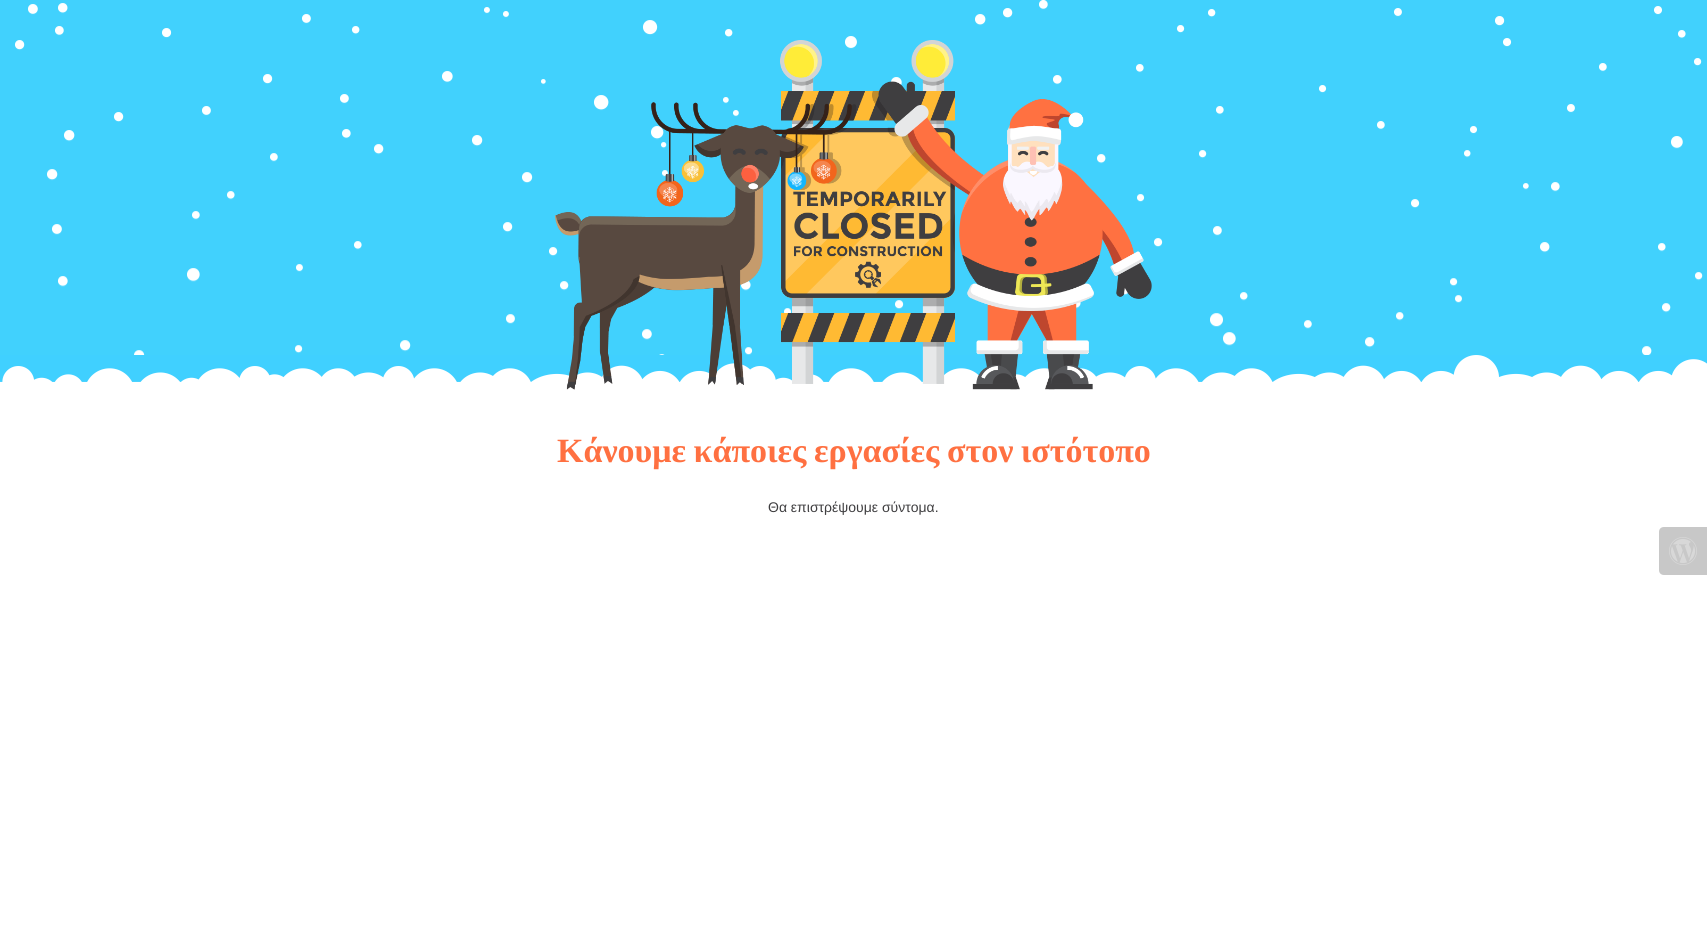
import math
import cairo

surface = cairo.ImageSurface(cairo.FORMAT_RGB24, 1707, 932)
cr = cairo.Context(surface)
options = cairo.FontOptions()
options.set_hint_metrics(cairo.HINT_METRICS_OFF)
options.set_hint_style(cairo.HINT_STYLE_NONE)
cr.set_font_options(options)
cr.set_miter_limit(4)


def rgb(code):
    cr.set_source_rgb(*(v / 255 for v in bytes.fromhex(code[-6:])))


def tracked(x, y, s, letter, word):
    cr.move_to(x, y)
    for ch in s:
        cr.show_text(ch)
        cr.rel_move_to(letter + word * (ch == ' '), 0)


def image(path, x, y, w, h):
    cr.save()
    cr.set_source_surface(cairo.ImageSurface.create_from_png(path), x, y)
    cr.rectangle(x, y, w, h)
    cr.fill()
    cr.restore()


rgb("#ffffff")
cr.paint()
rgb("#41d1fd")
cr.rectangle(0, 0, 1707, 355)
cr.fill()
image("img/1.png", 15, 0, 1688, 355)
image("img/3.png", 0, 355, 1707, 27)
image("img/2.png", 555, 40, 597, 350)
rgb("#c8c8c8")
cr.new_path()
cr.move_to(1664, 527)
cr.line_to(1707, 527)
cr.line_to(1707, 575)
cr.line_to(1664, 575)
cr.curve_to(1661, 575, 1659, 573, 1659, 570)
cr.line_to(1659, 532)
cr.curve_to(1659, 529, 1661, 527, 1664, 527)
cr.close_path()
cr.fill()
image("img/4.png", 1669, 537, 28, 28)
cr.select_font_face("Liberation Serif", cairo.FONT_SLANT_NORMAL, cairo.FONT_WEIGHT_BOLD)
cr.set_font_size(34)
rgb("#ff7041")
tracked(557, 462, "Κάνουμε κάποιες εργασίες στον ιστότοπο", 0, -1)
cr.select_font_face("Liberation Sans")
cr.set_font_size(14)
rgb("#3f3e40")
cr.move_to(768, 512)
cr.show_text("Θα επιστρέψουμε σύντομα.")
surface.write_to_png("page.png")
